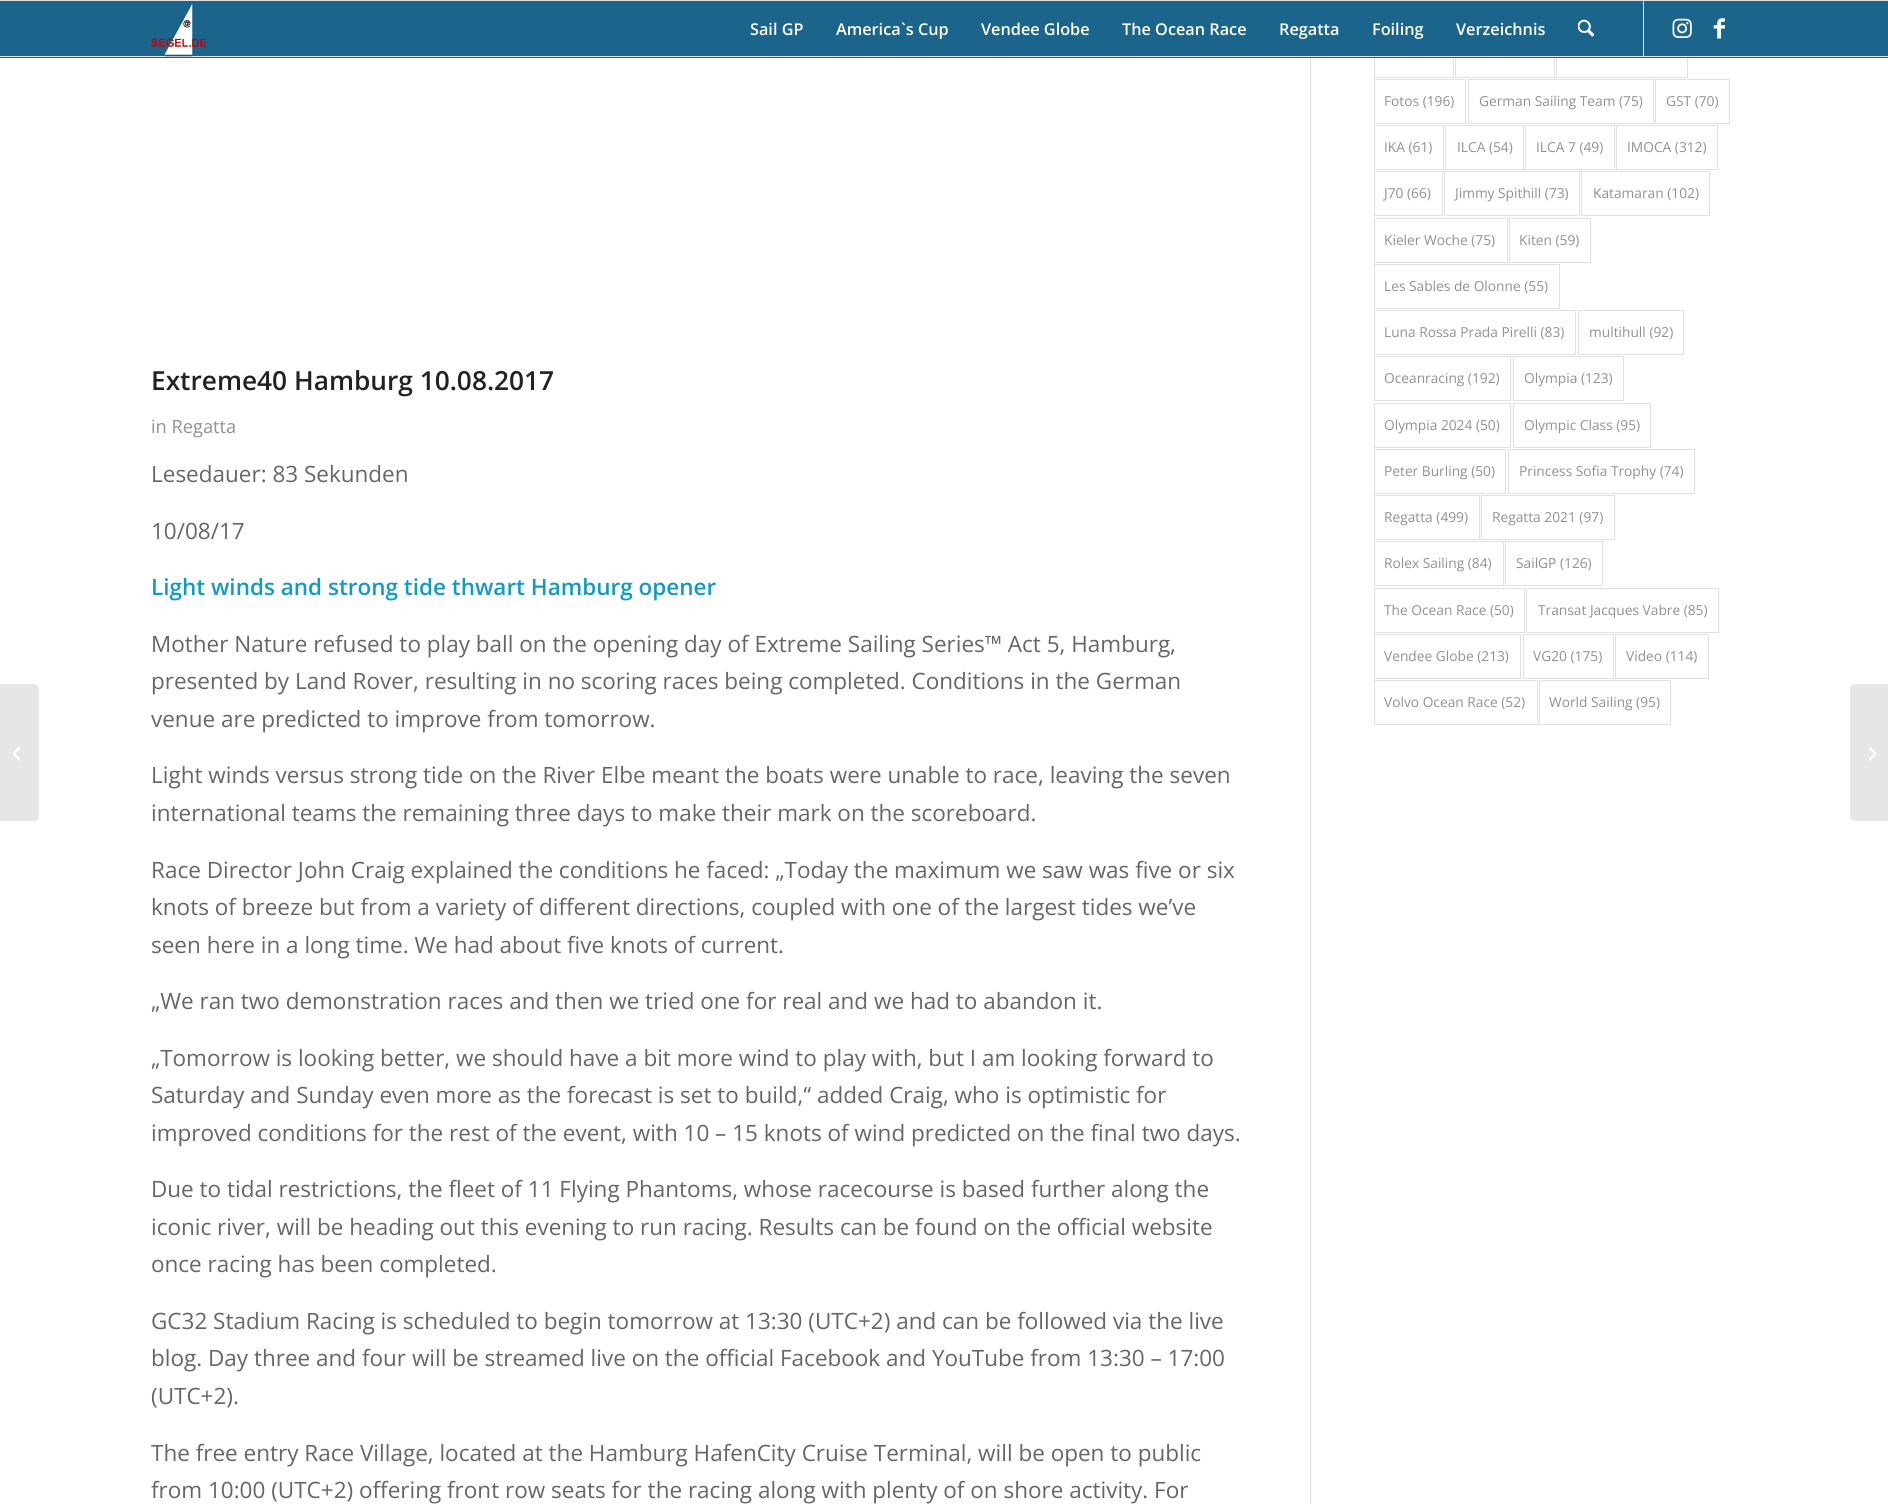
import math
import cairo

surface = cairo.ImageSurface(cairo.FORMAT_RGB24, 1888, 1504)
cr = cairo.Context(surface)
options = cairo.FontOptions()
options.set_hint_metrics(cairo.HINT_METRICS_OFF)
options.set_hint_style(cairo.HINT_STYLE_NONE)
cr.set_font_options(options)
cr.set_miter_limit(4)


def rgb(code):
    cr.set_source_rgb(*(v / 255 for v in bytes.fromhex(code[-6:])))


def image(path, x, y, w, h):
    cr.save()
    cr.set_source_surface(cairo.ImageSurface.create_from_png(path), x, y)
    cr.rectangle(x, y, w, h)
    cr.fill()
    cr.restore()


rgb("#ffffff")
cr.paint()
rgb("#e1e1e1")
cr.rectangle(1310, 0, 1, 1504)
cr.fill()
cr.rectangle(1374.5, -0.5, 231, 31)
cr.set_line_width(1)
cr.stroke()
cr.rectangle(1608.5, -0.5, 121, 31)
cr.stroke()
cr.rectangle(1374.5, 33.5, 79, 44)
cr.stroke()
cr.rectangle(1455.5, 33.5, 99, 44)
cr.stroke()
cr.rectangle(1556.5, 33.5, 131, 44)
cr.stroke()
cr.set_source_rgba(0.063, 0.369, 0.533, 0.95)
cr.rectangle(0, 1, 1888, 57)
cr.fill()
rgb("#e1e1e1")
cr.rectangle(0, 0, 1888, 1)
cr.rectangle(0, 56, 1888, 1)
cr.fill()
image("img/1.png", 151, 2, 56, 55)
cr.rectangle(1643, 1, 1, 55)
cr.fill()
image("img/2.png", 1578, 19, 17, 18)
image("img/3.png", 1672, 18, 20, 20)
image("img/4.png", 1713, 18, 12, 21)
rgb("#e6e6e6")
cr.new_path()
cr.move_to(0, 684)
cr.line_to(34, 684)
cr.curve_to(37, 684, 39, 686, 39, 689)
cr.line_to(39, 816)
cr.curve_to(39, 819, 37, 821, 34, 821)
cr.line_to(0, 821)
cr.close_path()
cr.fill()
image("img/5.png", 13, 747, 7, 14)
cr.rectangle(1374.5, 79.5, 91, 44)
rgb("#e1e1e1")
cr.stroke()
cr.rectangle(1468.5, 79.5, 185, 44)
cr.stroke()
cr.rectangle(1655.5, 79.5, 74, 44)
cr.stroke()
cr.rectangle(1374.5, 125.5, 69, 44)
cr.stroke()
cr.rectangle(1445.5, 125.5, 78, 44)
cr.stroke()
cr.rectangle(1525.5, 125.5, 89, 44)
cr.stroke()
cr.rectangle(1616.5, 125.5, 101, 44)
cr.stroke()
cr.rectangle(1374.5, 171.5, 68, 44)
cr.stroke()
cr.rectangle(1444.5, 171.5, 135, 44)
cr.stroke()
cr.rectangle(1581.5, 171.5, 128, 44)
cr.stroke()
cr.rectangle(1374.5, 218.5, 133, 44)
cr.stroke()
cr.rectangle(1509.5, 218.5, 81, 44)
cr.stroke()
cr.rectangle(1374.5, 264.5, 185, 44)
cr.stroke()
cr.rectangle(1374.5, 310.5, 201, 44)
cr.stroke()
cr.rectangle(1578.5, 310.5, 105, 44)
cr.stroke()
cr.rectangle(1374.5, 356.5, 136, 44)
cr.stroke()
cr.rectangle(1513.5, 356.5, 110, 44)
cr.stroke()
cr.rectangle(1374.5, 403.5, 136, 44)
cr.stroke()
cr.rectangle(1513.5, 403.5, 137, 44)
cr.stroke()
cr.rectangle(1374.5, 449.5, 131, 44)
cr.stroke()
cr.rectangle(1508.5, 449.5, 186, 44)
cr.stroke()
cr.rectangle(1374.5, 495.5, 105, 44)
cr.stroke()
cr.rectangle(1481.5, 495.5, 133, 44)
cr.stroke()
cr.rectangle(1374.5, 541.5, 129, 44)
cr.stroke()
cr.rectangle(1505.5, 541.5, 97, 44)
cr.stroke()
cr.rectangle(1374.5, 588.5, 150, 44)
cr.stroke()
cr.rectangle(1526.5, 588.5, 192, 44)
cr.stroke()
cr.rectangle(1374.5, 634.5, 146, 44)
cr.stroke()
cr.rectangle(1523.5, 634.5, 90, 44)
cr.stroke()
cr.rectangle(1615.5, 634.5, 93, 44)
cr.stroke()
cr.rectangle(1374.5, 680.5, 163, 44)
cr.stroke()
cr.rectangle(1539.5, 680.5, 131, 44)
cr.stroke()
rgb("#e6e6e6")
cr.new_path()
cr.move_to(1855, 684)
cr.line_to(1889, 684)
cr.line_to(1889, 821)
cr.line_to(1855, 821)
cr.curve_to(1852, 821, 1850, 819, 1850, 816)
cr.line_to(1850, 689)
cr.curve_to(1850, 686, 1852, 684, 1855, 684)
cr.close_path()
cr.fill()
image("img/6.png", 1869, 747, 7, 14)
cr.select_font_face("Open Sans SemiBold")
cr.set_font_size(16.25)
rgb("#ffffff")
for x, y, s in [
    (750, 35, "Sail GP"),
    (836, 35, "America`s Cup"),
    (981, 35, "Vendee Globe"),
    (1122, 35, "The Ocean Race"),
    (1279, 35, "Regatta"),
    (1372, 35, "Foiling"),
    (1456, 35, "Verzeichnis"),
]:
    cr.move_to(x, y)
    cr.show_text(s)
cr.set_font_size(26.25)
rgb("#222222")
cr.move_to(151, 390)
cr.show_text("Extreme40 Hamburg 10.08.2017")
cr.select_font_face("Open Sans")
cr.set_font_size(18.25)
rgb("#919191")
cr.move_to(151, 433)
cr.show_text("in Regatta")
cr.set_font_size(22.5)
rgb("#666666")
cr.move_to(151, 482)
cr.show_text("Lesedauer: 83 Sekunden")
cr.move_to(151, 539)
cr.show_text("10/08/17")
cr.select_font_face("Open Sans SemiBold")
rgb("#109bc5")
cr.move_to(151, 595)
cr.show_text("Light winds and strong tide thwart Hamburg opener")
cr.select_font_face("Open Sans")
rgb("#666666")
for x, y, s in [
    (151, 652, "Mother Nature refused to play ball on the opening day of Extreme Sailing Series™ Act 5, Hamburg,"),
    (151, 689, "presented by Land Rover, resulting in no scoring races being completed. Conditions in the German"),
    (151, 727, "venue are predicted to improve from tomorrow."),
    (151, 783, "Light winds versus strong tide on the River Elbe meant the boats were unable to race, leaving the seven"),
    (151, 821, "international teams the remaining three days to make their mark on the scoreboard."),
    (151, 878, "Race Director John Craig explained the conditions he faced: „Today the maximum we saw was five or six"),
    (151, 915, "knots of breeze but from a variety of different directions, coupled with one of the largest tides we’ve"),
    (151, 953, "seen here in a long time. We had about five knots of current."),
    (151, 1009, "„We ran two demonstration races and then we tried one for real and we had to abandon it."),
    (151, 1066, "„Tomorrow is looking better, we should have a bit more wind to play with, but I am looking forward to"),
    (151, 1103, "Saturday and Sunday even more as the forecast is set to build,“ added Craig, who is optimistic for"),
    (151, 1141, "improved conditions for the rest of the event, with 10 – 15 knots of wind predicted on the final two days."),
    (151, 1197, "Due to tidal restrictions, the fleet of 11 Flying Phantoms, whose racecourse is based further along the"),
    (151, 1235, "iconic river, will be heading out this evening to run racing. Results can be found on the official website"),
    (151, 1272, "once racing has been completed."),
    (151, 1329, "GC32 Stadium Racing is scheduled to begin tomorrow at 13:30 (UTC+2) and can be followed via the live"),
    (151, 1366, "blog. Day three and four will be streamed live on the official Facebook and YouTube from 13:30 – 17:00"),
    (151, 1404, "(UTC+2)."),
    (151, 1461, "The free entry Race Village, located at the Hamburg HafenCity Cruise Terminal, will be open to public"),
    (151, 1498, "from 10:00 (UTC+2) offering front row seats for the racing along with plenty of on shore activity. For"),
]:
    cr.move_to(x, y)
    cr.show_text(s)
cr.set_font_size(13.75)
rgb("#919191")
for x, y, s in [
    (1384, 106, "Fotos (196)"),
    (1479, 106, "German Sailing Team (75)"),
    (1666, 106, "GST (70)"),
    (1384, 152, "IKA (61)"),
    (1457, 152, "ILCA (54)"),
    (1536, 152, "ILCA 7 (49)"),
    (1627, 152, "IMOCA (312)"),
    (1384, 198, "J70 (66)"),
    (1455, 198, "Jimmy Spithill (73)"),
    (1593, 198, "Katamaran (102)"),
    (1384, 245, "Kieler Woche (75)"),
    (1519, 245, "Kiten (59)"),
    (1384, 291, "Les Sables de Olonne (55)"),
    (1384, 337, "Luna Rossa Prada Pirelli (83)"),
    (1589, 337, "multihull (92)"),
    (1384, 383, "Oceanracing (192)"),
    (1524, 383, "Olympia (123)"),
    (1384, 430, "Olympia 2024 (50)"),
    (1524, 430, "Olympic Class (95)"),
    (1384, 476, "Peter Burling (50)"),
    (1519, 476, "Princess Sofia Trophy (74)"),
    (1384, 522, "Regatta (499)"),
    (1492, 522, "Regatta 2021 (97)"),
    (1384, 568, "Rolex Sailing (84)"),
    (1516, 568, "SailGP (126)"),
    (1384, 615, "The Ocean Race (50)"),
    (1538, 615, "Transat Jacques Vabre (85)"),
    (1384, 661, "Vendee Globe (213)"),
    (1533, 661, "VG20 (175)"),
    (1626, 661, "Video (114)"),
    (1384, 707, "Volvo Ocean Race (52)"),
    (1549, 707, "World Sailing (95)"),
]:
    cr.move_to(x, y)
    cr.show_text(s)
surface.write_to_png("page.png")
